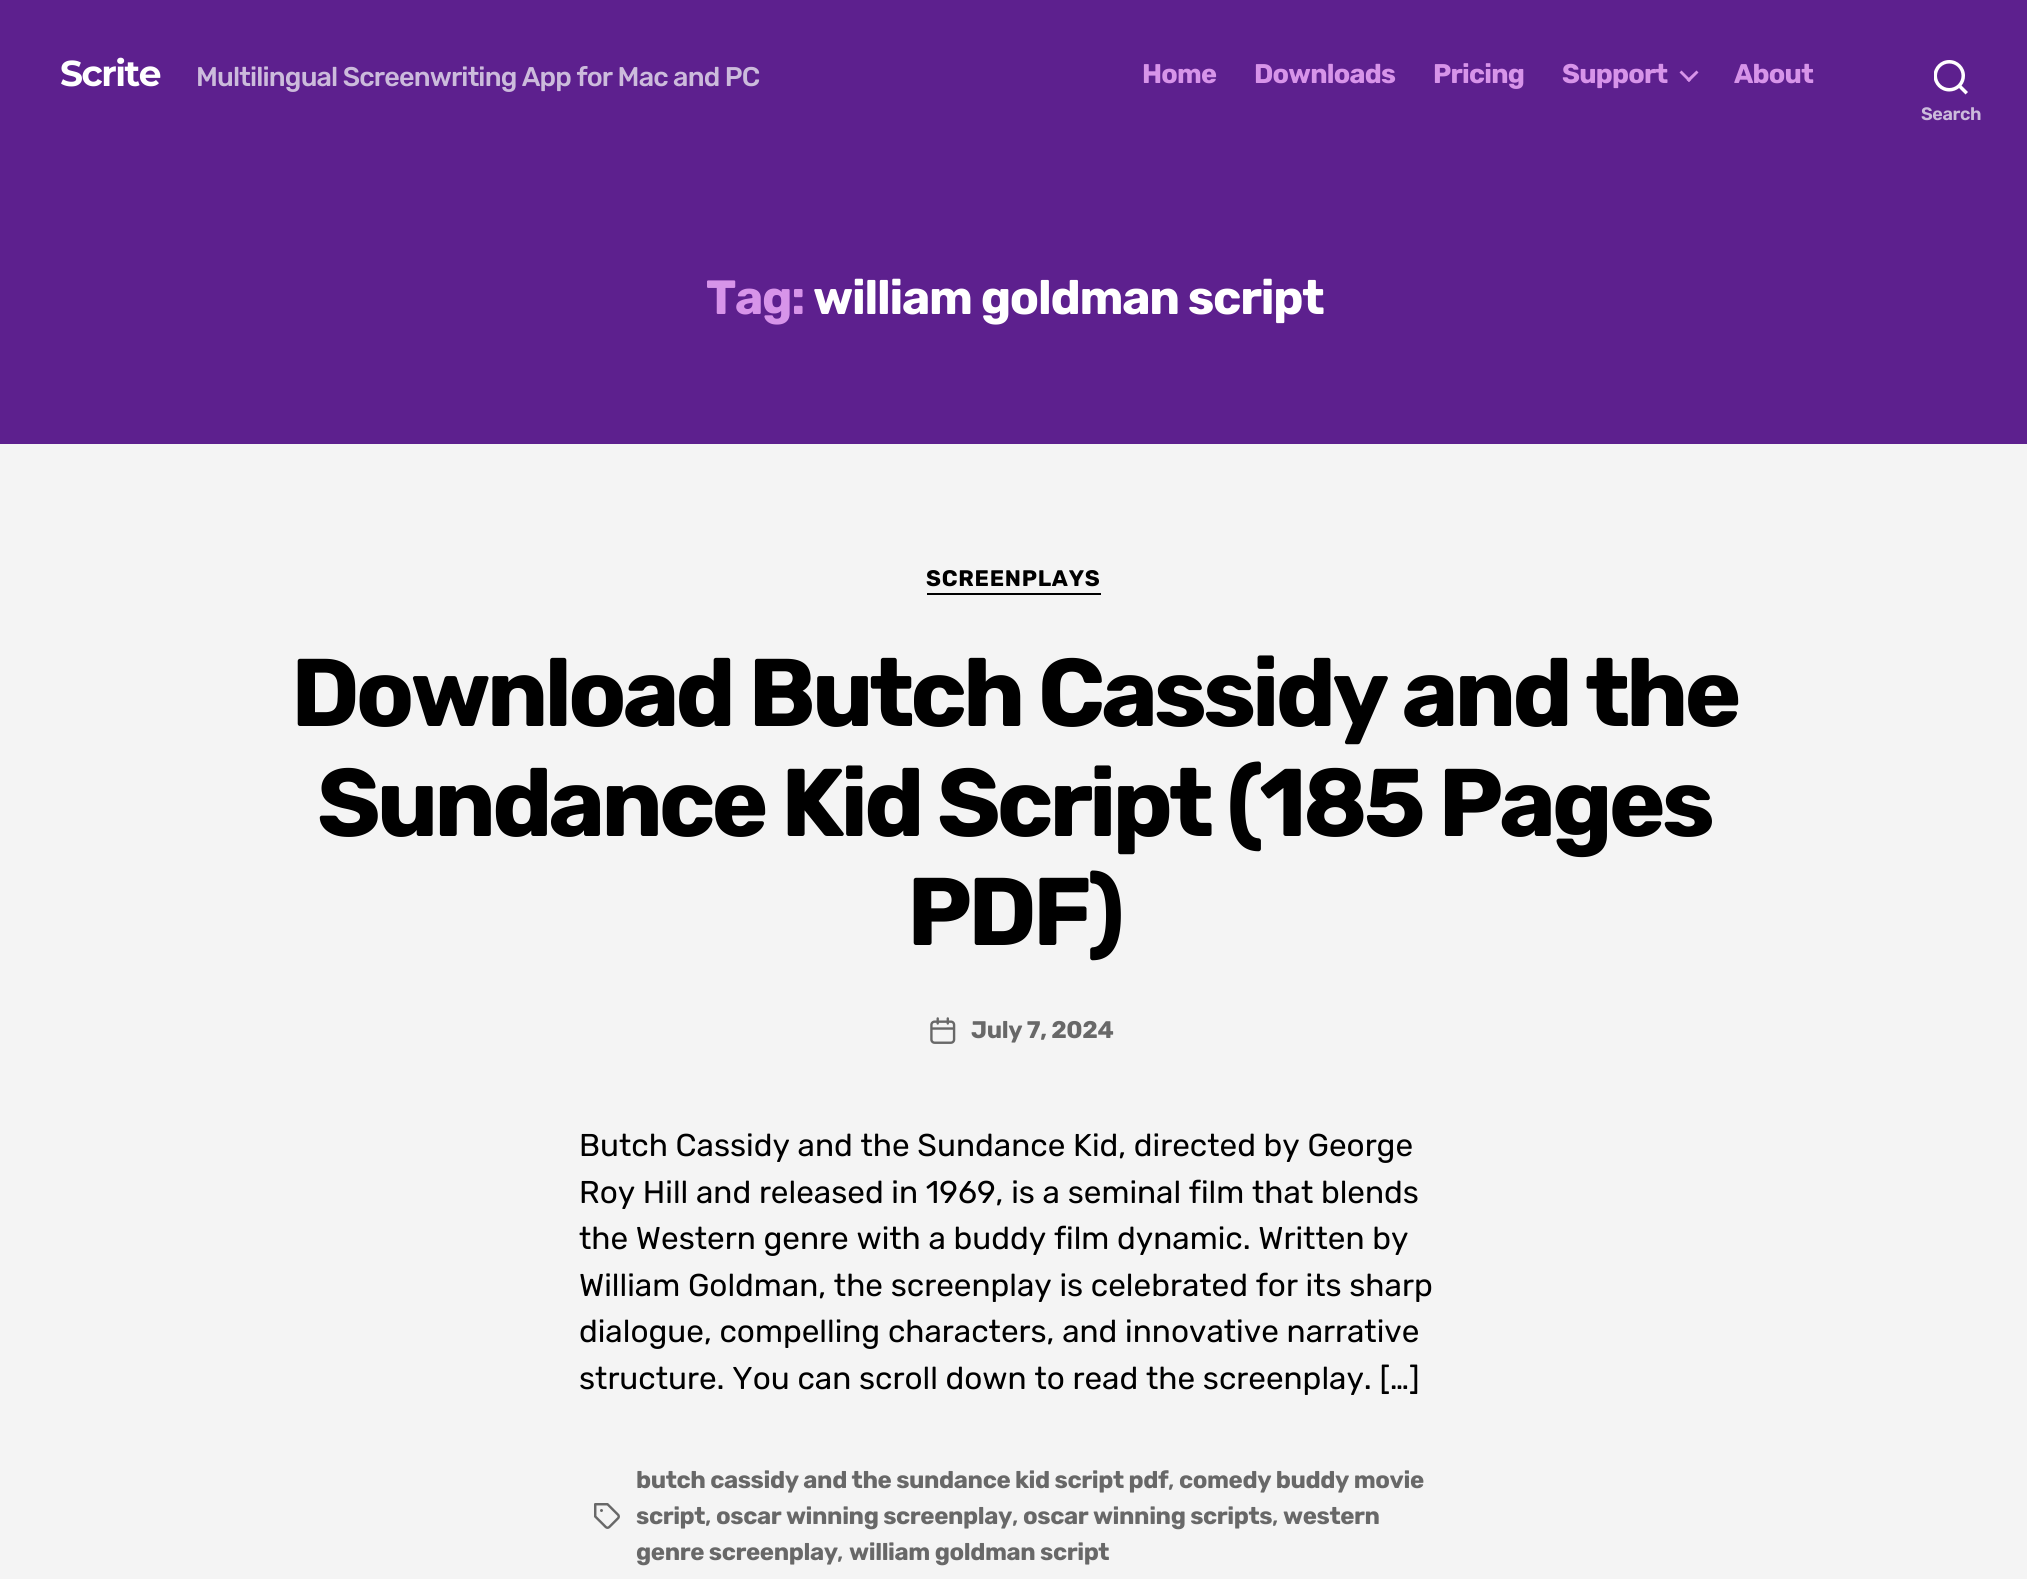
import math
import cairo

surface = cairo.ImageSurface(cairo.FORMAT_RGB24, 2027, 1579)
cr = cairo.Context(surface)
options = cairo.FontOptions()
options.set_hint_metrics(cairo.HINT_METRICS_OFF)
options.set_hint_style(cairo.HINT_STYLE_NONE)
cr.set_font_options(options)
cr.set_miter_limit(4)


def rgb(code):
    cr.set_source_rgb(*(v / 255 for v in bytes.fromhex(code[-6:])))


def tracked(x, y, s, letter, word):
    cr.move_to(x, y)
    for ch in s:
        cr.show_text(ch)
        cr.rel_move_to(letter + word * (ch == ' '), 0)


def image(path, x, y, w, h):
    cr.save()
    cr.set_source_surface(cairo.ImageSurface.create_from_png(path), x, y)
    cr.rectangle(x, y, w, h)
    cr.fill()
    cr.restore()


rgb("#f4f4f4")
cr.paint()
rgb("#5d208e")
cr.rectangle(0, 0, 2027, 444)
cr.fill()
rgb("#d794e9")
cr.new_path()
cr.move_to(1679.5, 72.5)
cr.line_to(1681.5, 70.5)
cr.line_to(1691, 80)
cr.line_to(1689, 82)
cr.close_path()
cr.fill()
cr.new_path()
cr.move_to(1686.5, 80)
cr.line_to(1696.5, 70.5)
cr.line_to(1698.5, 72.5)
cr.line_to(1689, 82)
cr.close_path()
cr.fill()
image("img/1.png", 1934, 60, 34, 35)
rgb("#000000")
cr.rectangle(927, 593, 174, 2)
cr.fill()
image("img/2.png", 930, 1017, 26, 27)
image("img/3.png", 594, 1503, 26, 26)
cr.select_font_face("Montserrat", cairo.FONT_SLANT_NORMAL, cairo.FONT_WEIGHT_BOLD)
cr.set_font_size(36)
rgb("#ffffff")
tracked(60, 86, "Scrite", -1.5, 0)
cr.select_font_face("Rubik Medium")
cr.set_font_size(27)
rgb("#ccbbdc")
tracked(196, 86, "Multilingual Screenwriting App for Mac and PC", -0.85, 0)
cr.select_font_face("Rubik", cairo.FONT_SLANT_NORMAL, cairo.FONT_WEIGHT_BOLD)
rgb("#d794e9")
for x, y, s in [
    (1142, 83, "Home"),
    (1254, 83, "Downloads"),
    (1433, 83, "Pricing"),
    (1562, 83, "Support"),
    (1734, 83, "About"),
]:
    tracked(x, y, s, -0.75, 0)
cr.select_font_face("Rubik SemiBold")
cr.set_font_size(18)
rgb("#ccbbdc")
tracked(1921, 120, "Search", -0.4, 0)
cr.select_font_face("Rubik", cairo.FONT_SLANT_NORMAL, cairo.FONT_WEIGHT_BOLD)
cr.set_font_size(48)
rgb("#d794e9")
tracked(706, 314, "Tag:", -1.25, 0)
rgb("#ffffff")
tracked(813, 314, "william goldman script", -1.25, 0)
cr.set_font_size(22.5)
rgb("#000000")
tracked(926, 586, "SCREENPLAYS", 0.75, 0)
cr.set_font_size(96)
for x, y, s in [
    (291, 726, "Download Butch Cassidy and the"),
    (317, 836, "Sundance Kid Script (185 Pages"),
    (907, 945, "PDF)"),
]:
    tracked(x, y, s, -4, 0)
cr.set_font_size(24)
rgb("#686868")
tracked(971, 1038, "July 7, 2024", -0.4, 0)
cr.select_font_face("Rubik")
cr.set_font_size(31.5)
rgb("#000000")
for x, y, s in [
    (579, 1156, "Butch Cassidy and the Sundance Kid, directed by George"),
    (579, 1203, "Roy Hill and released in 1969, is a seminal film that blends"),
    (579, 1249, "the Western genre with a buddy film dynamic. Written by"),
    (579, 1296, "William Goldman, the screenplay is celebrated for its sharp"),
    (579, 1342, "dialogue, compelling characters, and innovative narrative"),
    (579, 1389, "structure. You can scroll down to read the screenplay. […]"),
]:
    cr.move_to(x, y)
    cr.show_text(s)
cr.select_font_face("Rubik", cairo.FONT_SLANT_NORMAL, cairo.FONT_WEIGHT_BOLD)
cr.set_font_size(24)
rgb("#686868")
tracked(636, 1488, "butch cassidy and the sundance kid script pdf", -0.4, 0)
cr.select_font_face("Rubik Medium")
tracked(1168, 1488, ",", -0.4, 0)
cr.select_font_face("Rubik", cairo.FONT_SLANT_NORMAL, cairo.FONT_WEIGHT_BOLD)
tracked(1179, 1488, "comedy buddy movie", -0.4, 0)
tracked(636, 1524, "script", -0.4, 0)
cr.select_font_face("Rubik Medium")
tracked(705, 1524, ",", -0.4, 0)
cr.select_font_face("Rubik", cairo.FONT_SLANT_NORMAL, cairo.FONT_WEIGHT_BOLD)
tracked(716, 1524, "oscar winning screenplay", -0.4, 0)
cr.select_font_face("Rubik Medium")
tracked(1012, 1524, ",", -0.4, 0)
cr.select_font_face("Rubik", cairo.FONT_SLANT_NORMAL, cairo.FONT_WEIGHT_BOLD)
tracked(1023, 1524, "oscar winning scripts", -0.4, 0)
cr.select_font_face("Rubik Medium")
tracked(1272, 1524, ",", -0.4, 0)
cr.select_font_face("Rubik", cairo.FONT_SLANT_NORMAL, cairo.FONT_WEIGHT_BOLD)
tracked(1283, 1524, "western", -0.4, 0)
tracked(636, 1560, "genre screenplay", -0.4, 0)
cr.select_font_face("Rubik Medium")
tracked(837, 1560, ",", -0.4, 0)
cr.select_font_face("Rubik", cairo.FONT_SLANT_NORMAL, cairo.FONT_WEIGHT_BOLD)
tracked(849, 1560, "william goldman script", -0.4, 0)
surface.write_to_png("page.png")
